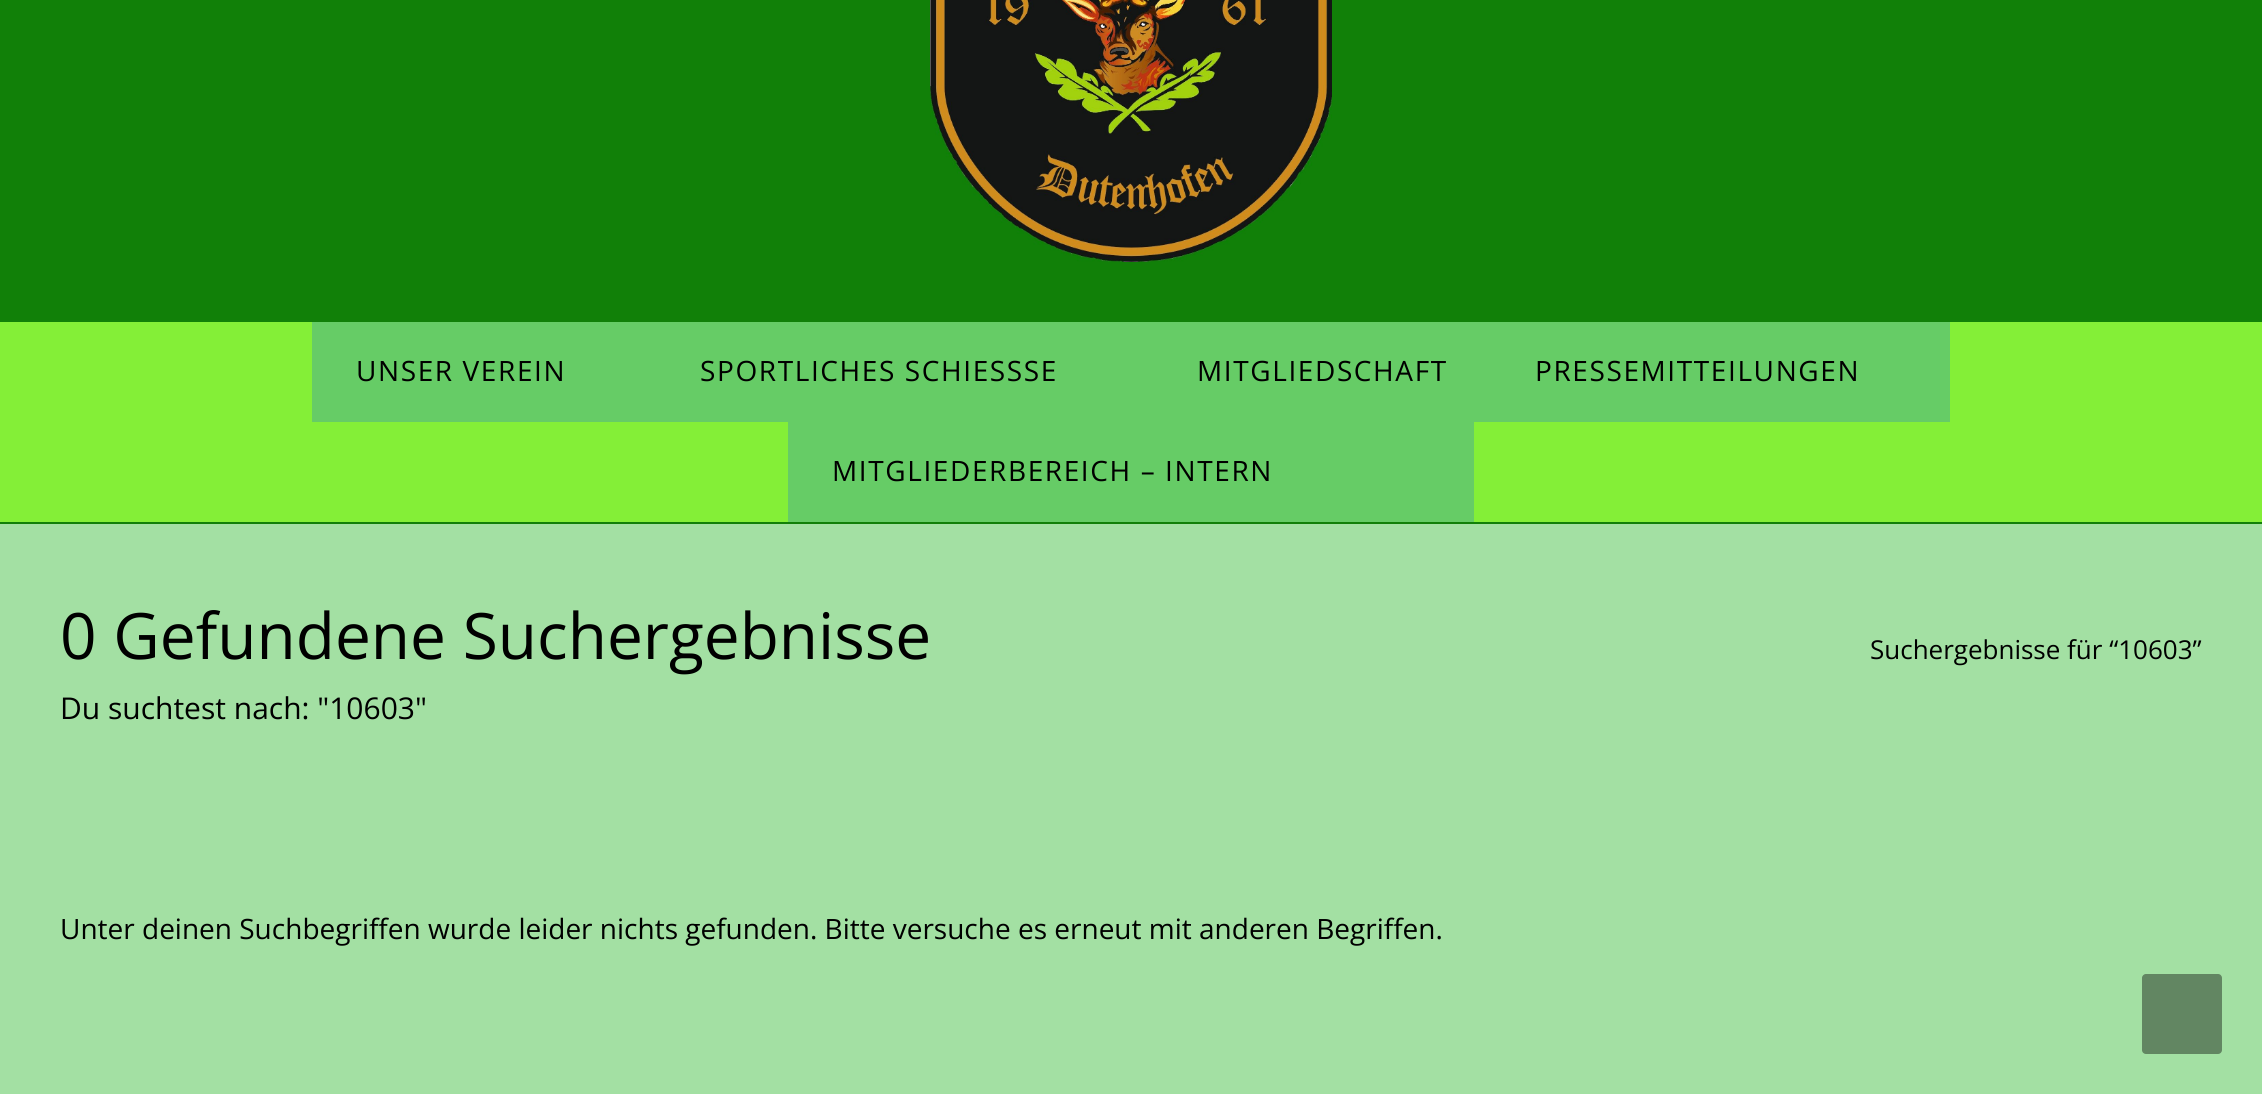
import math
import cairo

surface = cairo.ImageSurface(cairo.FORMAT_RGB24, 2262, 1094)
cr = cairo.Context(surface)
options = cairo.FontOptions()
options.set_hint_metrics(cairo.HINT_METRICS_OFF)
options.set_hint_style(cairo.HINT_STYLE_NONE)
cr.set_font_options(options)
cr.set_miter_limit(4)


def rgb(code):
    cr.set_source_rgb(*(v / 255 for v in bytes.fromhex(code[-6:])))


def tracked(x, y, s, letter, word):
    cr.move_to(x, y)
    for ch in s:
        cr.show_text(ch)
        cr.rel_move_to(letter + word * (ch == ' '), 0)


def rrect(x, y, w, h, r):
    cr.new_sub_path()
    for i, (u, v) in enumerate([(x + w - r, y + h - r), (x + r, y + h - r), (x + r, y + r), (x + w - r, y + r)]):
        cr.arc(u, v, r, i * math.pi / 2, (i + 1) * math.pi / 2)
    cr.close_path()


def image(path, x, y, w, h):
    cr.save()
    cr.set_source_surface(cairo.ImageSurface.create_from_png(path), x, y)
    cr.rectangle(x, y, w, h)
    cr.fill()
    cr.restore()


rgb("#a3e0a3")
cr.paint()
rgb("#118008")
cr.rectangle(0, 522, 2262, 2)
cr.fill()
cr.rectangle(0, 0, 2262, 322)
cr.fill()
image("img/1.png", 930, 0, 402, 262)
for x, y, w, h, color in [
    (0, 322, 2262, 200, "#84ef37"),
    (312, 322, 1638, 100, "#66cc66"),
    (788, 422, 686, 100, "#66cc66"),
]:
    rgb(color)
    cr.rectangle(x, y, w, h)
    cr.fill()
rgb("#628662")
rrect(2142, 974, 80, 80, 4)
cr.fill()
cr.select_font_face("Open Sans")
cr.set_font_size(28)
rgb("#000000")
for x, y, s in [
    (356, 381, "UNSER VEREIN"),
    (700, 381, "SPORTLICHES SCHIESSSE"),
    (1197, 381, "MITGLIEDSCHAFT"),
    (1535, 381, "PRESSEMITTEILUNGEN"),
    (832, 481, "MITGLIEDERBEREICH – INTERN"),
]:
    tracked(x, y, s, 1.6, 0)
cr.set_font_size(64)
cr.move_to(60, 659)
cr.show_text("0 Gefundene Suchergebnisse")
cr.set_font_size(26)
cr.move_to(1870, 659)
cr.show_text("Suchergebnisse für “10603”")
cr.set_font_size(30)
cr.move_to(60, 719)
cr.show_text("Du suchtest nach: \"10603\"")
cr.set_font_size(28)
cr.move_to(60, 939)
cr.show_text("Unter deinen Suchbegriffen wurde leider nichts gefunden. Bitte versuche es erneut mit anderen Begriffen.")
surface.write_to_png("page.png")
